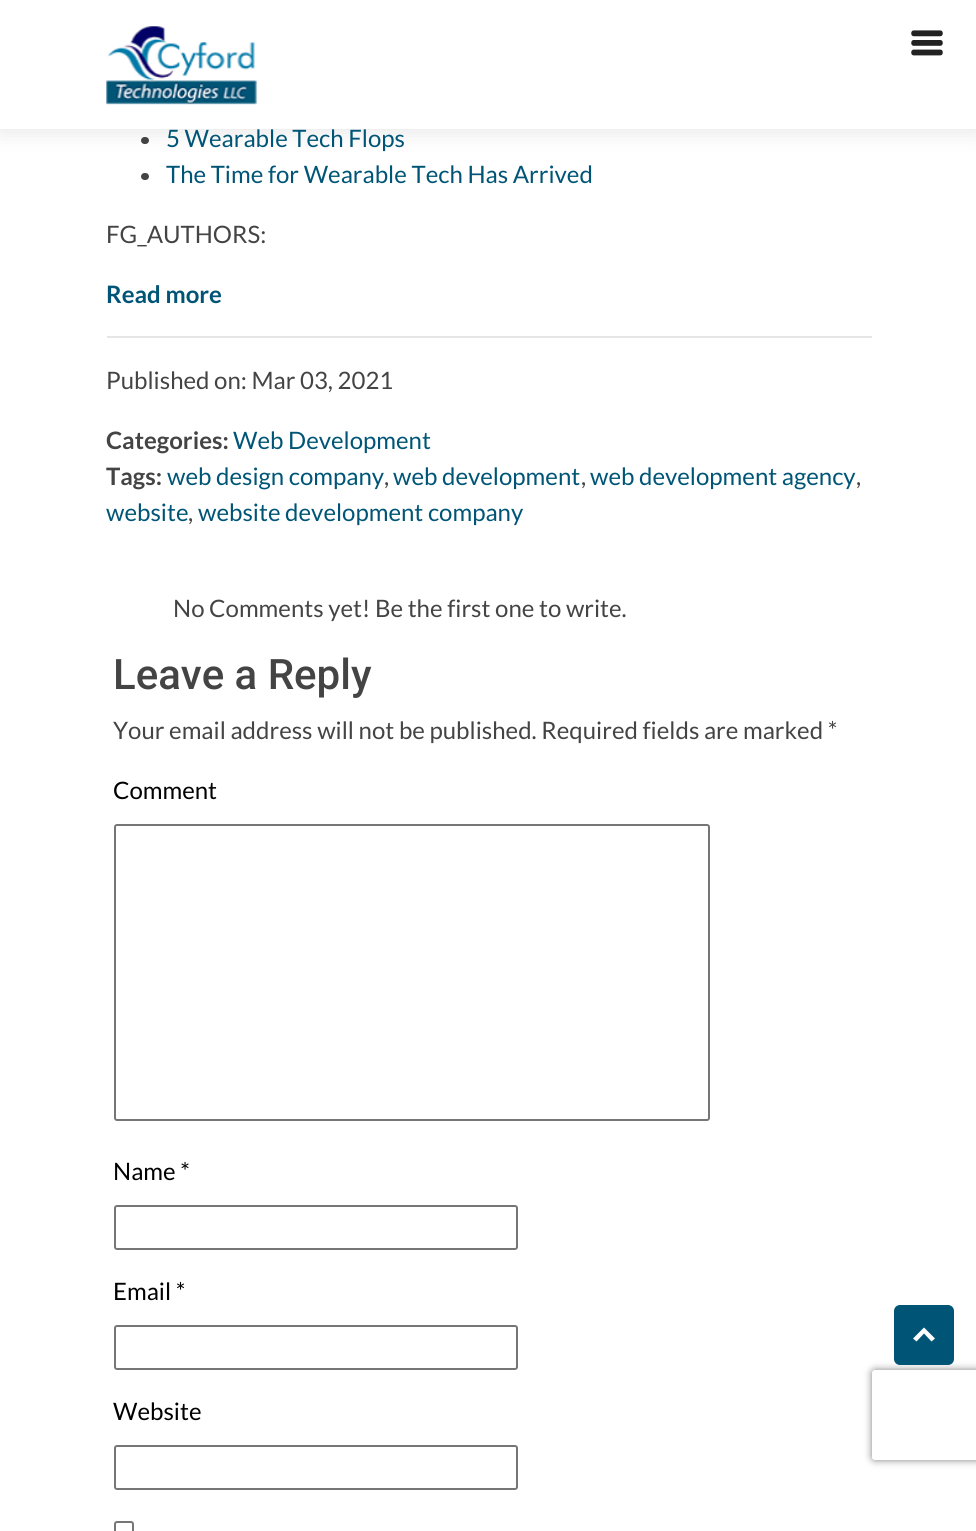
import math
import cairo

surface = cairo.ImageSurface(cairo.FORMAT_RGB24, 976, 1531)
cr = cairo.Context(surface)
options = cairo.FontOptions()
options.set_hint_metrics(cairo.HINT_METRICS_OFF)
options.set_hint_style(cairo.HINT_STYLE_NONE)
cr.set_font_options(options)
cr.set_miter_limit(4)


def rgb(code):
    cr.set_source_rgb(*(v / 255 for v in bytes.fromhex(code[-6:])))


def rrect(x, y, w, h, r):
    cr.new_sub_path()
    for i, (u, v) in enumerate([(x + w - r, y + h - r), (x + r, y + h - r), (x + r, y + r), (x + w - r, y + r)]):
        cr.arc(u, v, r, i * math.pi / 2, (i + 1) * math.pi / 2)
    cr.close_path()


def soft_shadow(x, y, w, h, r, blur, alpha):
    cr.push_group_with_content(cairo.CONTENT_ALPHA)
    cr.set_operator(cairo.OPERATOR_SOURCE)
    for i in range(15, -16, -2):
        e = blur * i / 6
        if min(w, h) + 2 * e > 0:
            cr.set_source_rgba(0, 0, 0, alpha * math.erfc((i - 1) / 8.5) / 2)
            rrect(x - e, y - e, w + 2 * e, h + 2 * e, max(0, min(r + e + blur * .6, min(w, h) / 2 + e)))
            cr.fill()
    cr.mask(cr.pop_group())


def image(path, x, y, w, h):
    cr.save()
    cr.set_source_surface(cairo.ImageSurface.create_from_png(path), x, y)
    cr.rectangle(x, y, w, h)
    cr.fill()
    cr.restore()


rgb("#ffffff")
cr.paint()
rgb("#444444")
rrect(141, 137, 8, 7, 3.5)
cr.fill()
rgb("#000000")
soft_shadow(0, 3, 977, 129, 0, 11, 0.1)
rgb("#ffffff")
cr.rectangle(0, 0, 976, 129)
cr.fill()
image("img/1.png", 106, 26, 152, 79)
image("img/2.png", 911, 30, 32, 26)
rgb("#444444")
rrect(141, 173, 8, 7, 3.5)
cr.fill()
rgb("#e6e6e6")
cr.rectangle(107, 336, 765, 2)
cr.fill()
rrect(115, 825, 594, 295, 2)
rgb("#767676")
cr.stroke()
rrect(115, 1206, 402, 43, 2)
cr.stroke()
rrect(115, 1326, 402, 43, 2)
cr.stroke()
rrect(115, 1446, 402, 43, 2)
cr.stroke()
rrect(115, 1522, 18, 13, 2)
cr.stroke()
cr.save()
cr.set_fill_rule(cairo.FILL_RULE_EVEN_ODD)
cr.new_path()
cr.move_to(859, 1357)
cr.line_to(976, 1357)
cr.line_to(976, 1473)
cr.line_to(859, 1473)
cr.close_path()
cr.move_to(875, 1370)
cr.line_to(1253, 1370)
cr.curve_to(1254.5, 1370, 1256, 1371.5, 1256, 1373)
cr.line_to(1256, 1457)
cr.curve_to(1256, 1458.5, 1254.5, 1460, 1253, 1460)
cr.line_to(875, 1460)
cr.curve_to(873.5, 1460, 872, 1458.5, 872, 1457)
cr.line_to(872, 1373)
cr.curve_to(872, 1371.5, 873.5, 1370, 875, 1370)
cr.close_path()
cr.clip()
rgb("#808080")
soft_shadow(872, 1370, 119, 90, 3, 4, 1)
cr.restore()
rgb("#005576")
rrect(894, 1305, 60, 60, 6)
cr.fill()
rgb("#ffffff")
cr.new_path()
cr.move_to(916.5, 1341.5)
cr.line_to(924, 1333.5)
cr.line_to(931.5, 1341.5)
cr.line_to(935, 1338.5)
cr.line_to(924, 1327.5)
cr.line_to(913, 1338.5)
cr.close_path()
cr.fill()
cr.select_font_face("Lato")
cr.set_font_size(24)
rgb("#005576")
cr.move_to(166, 147)
cr.show_text("5 Wearable Tech Flops")
cr.move_to(166, 183)
cr.show_text("The Time for Wearable Tech Has Arrived")
rgb("#444444")
cr.move_to(106, 243)
cr.show_text("FG_AUTHORS:")
cr.select_font_face("Lato", cairo.FONT_SLANT_NORMAL, cairo.FONT_WEIGHT_BOLD)
rgb("#005576")
cr.move_to(106, 303)
cr.show_text("Read more")
cr.select_font_face("Lato")
rgb("#444444")
cr.move_to(106, 389)
cr.show_text("Published on: Mar 03, 2021")
cr.select_font_face("Lato", cairo.FONT_SLANT_NORMAL, cairo.FONT_WEIGHT_BOLD)
cr.move_to(106, 449)
cr.show_text("Categories:")
cr.select_font_face("Lato")
rgb("#005576")
cr.move_to(233, 449)
cr.show_text("Web Development")
cr.select_font_face("Lato", cairo.FONT_SLANT_NORMAL, cairo.FONT_WEIGHT_BOLD)
rgb("#444444")
cr.move_to(106, 485)
cr.show_text("Tags:")
cr.select_font_face("Lato")
rgb("#005576")
cr.move_to(167, 485)
cr.show_text("web design company")
rgb("#444444")
cr.move_to(384, 485)
cr.show_text(",")
rgb("#005576")
cr.move_to(393, 485)
cr.show_text("web development")
rgb("#444444")
cr.move_to(581, 485)
cr.show_text(",")
rgb("#005576")
cr.move_to(590, 485)
cr.show_text("web development agency")
rgb("#444444")
cr.move_to(856, 485)
cr.show_text(",")
rgb("#005576")
cr.move_to(106, 521)
cr.show_text("website")
rgb("#444444")
cr.move_to(188, 521)
cr.show_text(",")
rgb("#005576")
cr.move_to(198, 521)
cr.show_text("website development company")
rgb("#444444")
cr.move_to(173, 617)
cr.show_text("No Comments yet! Be the first one to write.")
cr.select_font_face("Roboto Medium")
cr.set_font_size(42)
cr.move_to(113, 689)
cr.show_text("Leave a Reply")
cr.select_font_face("Lato")
cr.set_font_size(24)
cr.move_to(113, 739)
cr.show_text("Your email address will not be published. Required fields are marked *")
rgb("#000000")
for x, y, s in [
    (113, 799, "Comment"),
    (113, 1180, "Name *"),
    (113, 1300, "Email *"),
    (113, 1420, "Website"),
]:
    cr.move_to(x, y)
    cr.show_text(s)
surface.write_to_png("page.png")
